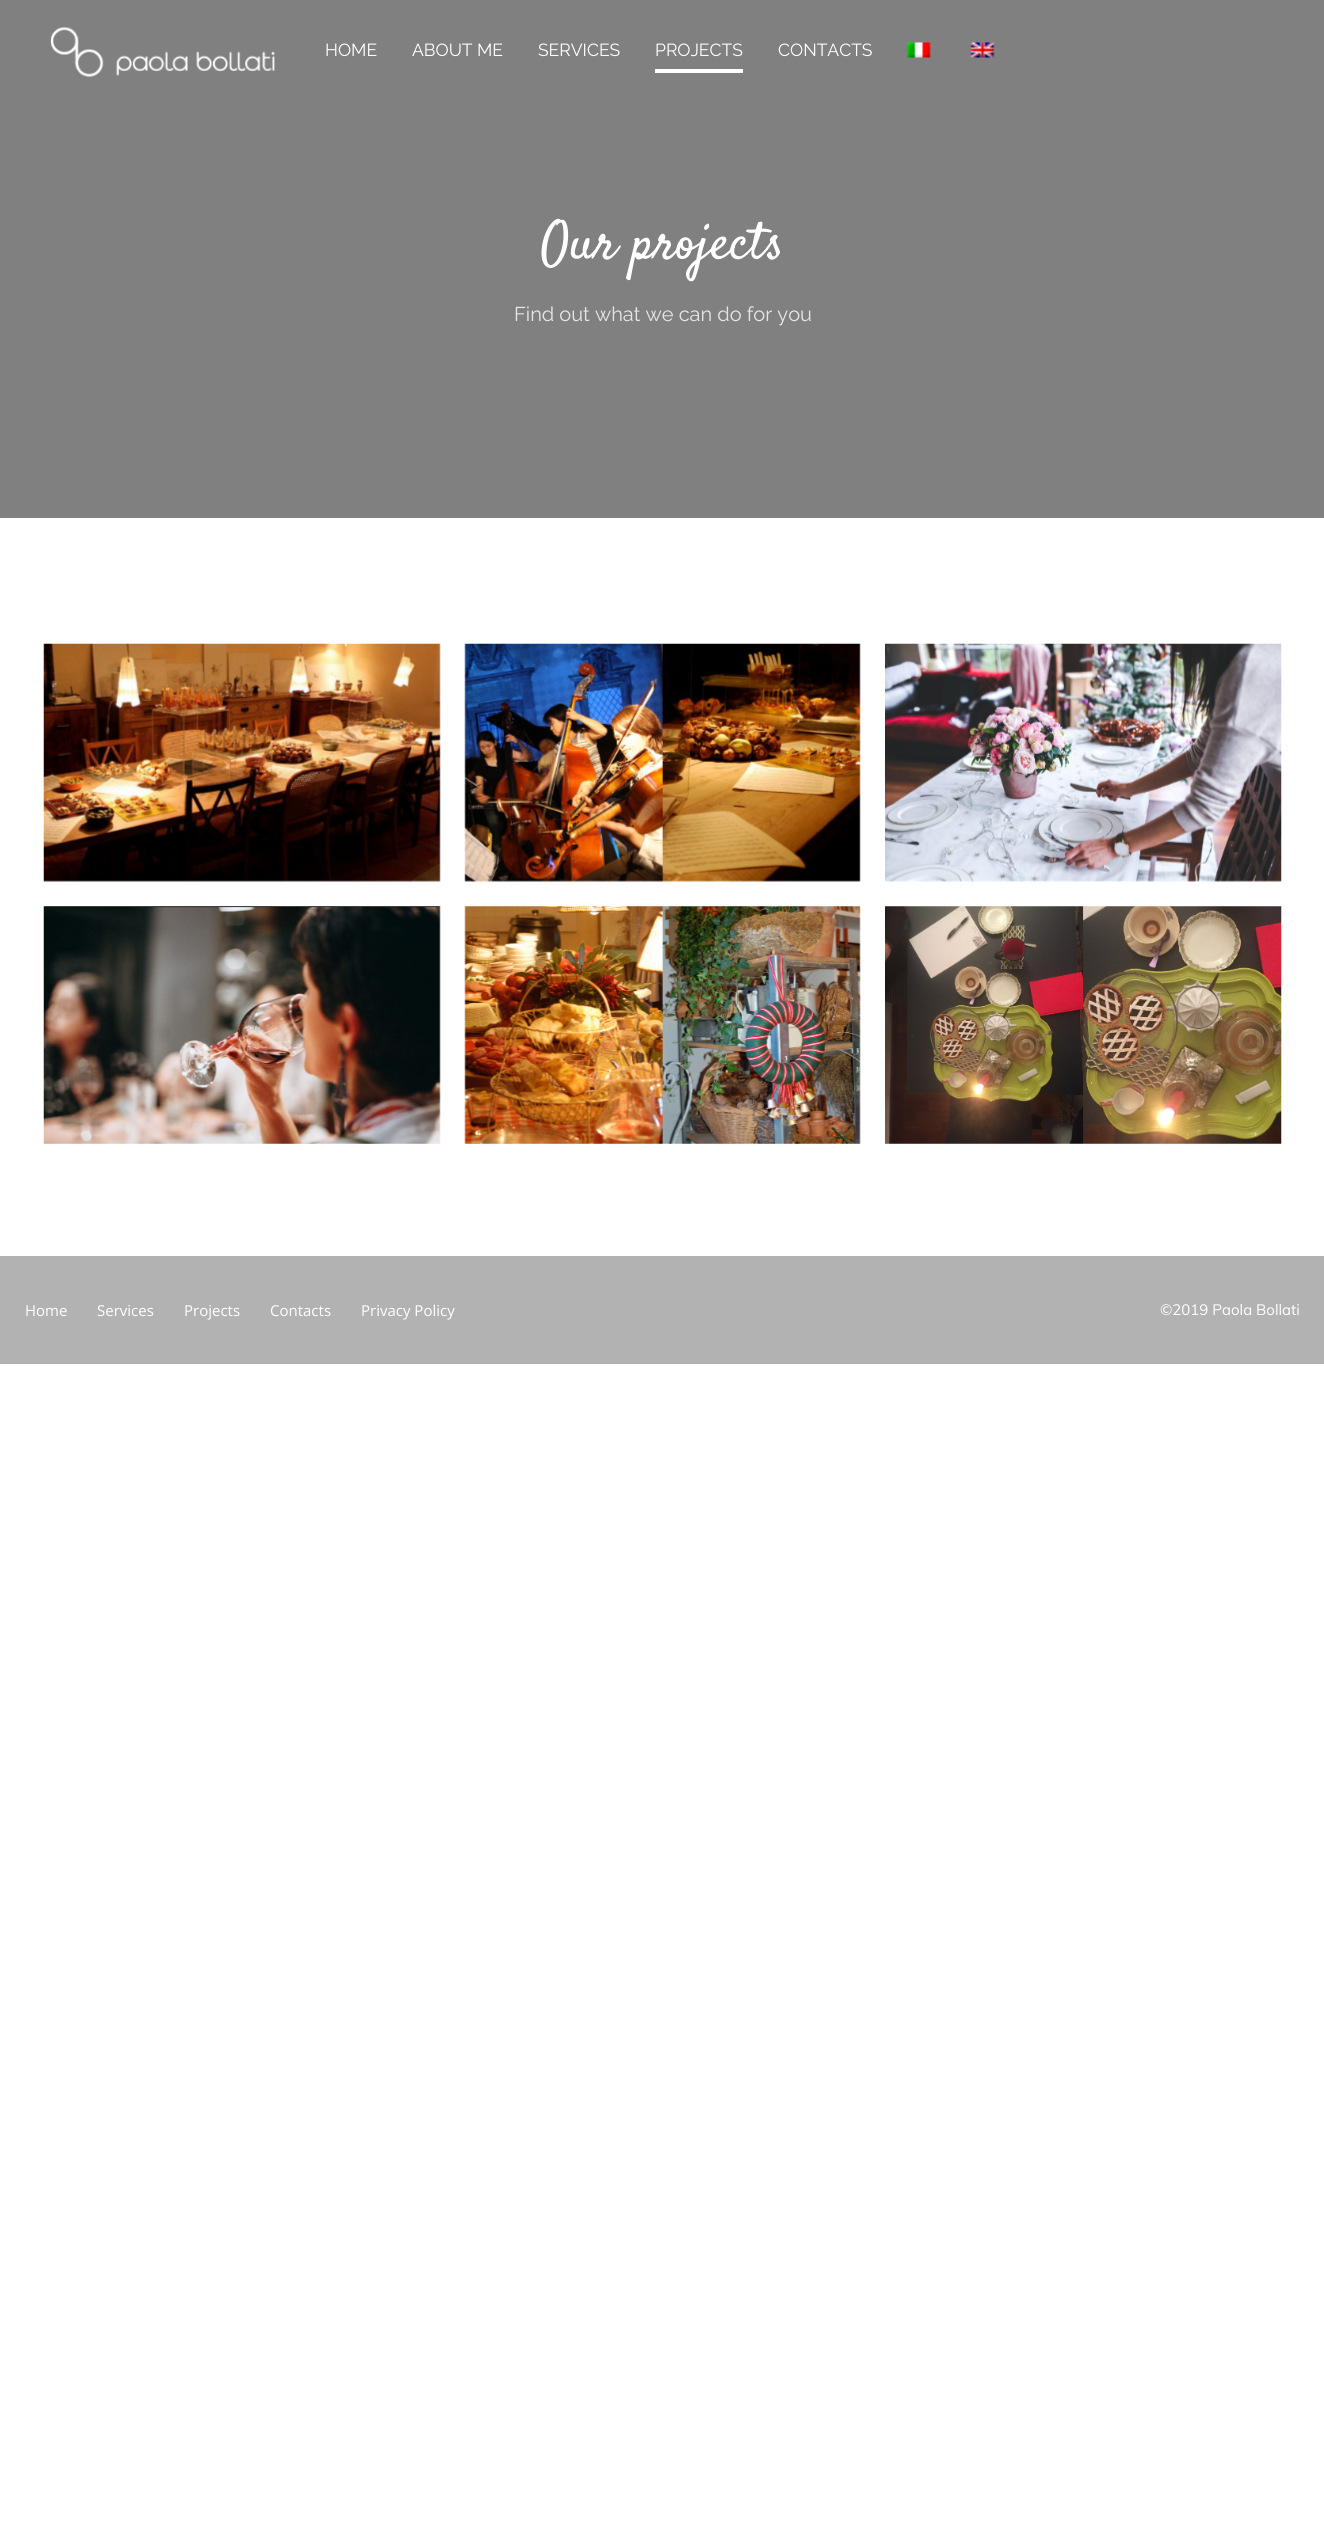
import math
import cairo

surface = cairo.ImageSurface(cairo.FORMAT_RGB24, 1324, 2528)
cr = cairo.Context(surface)
options = cairo.FontOptions()
options.set_hint_metrics(cairo.HINT_METRICS_OFF)
options.set_hint_style(cairo.HINT_STYLE_NONE)
cr.set_font_options(options)
cr.set_miter_limit(4)


def rgb(code):
    cr.set_source_rgb(*(v / 255 for v in bytes.fromhex(code[-6:])))


def image(path, x, y, w, h):
    cr.save()
    cr.set_source_surface(cairo.ImageSurface.create_from_png(path), x, y)
    cr.rectangle(x, y, w, h)
    cr.fill()
    cr.restore()


rgb("#ffffff")
cr.paint()
rgb("#808080")
cr.rectangle(0, 0, 1324, 518)
cr.fill()
image("img/1.png", 50, 27, 225, 50)
rgb("#ffffff")
cr.rectangle(655, 69, 88, 4)
cr.fill()
image("img/2.png", 907, 42, 24, 16)
image("img/3.png", 970, 42, 25, 16)
image("img/4.png", 43, 643, 398, 239)
image("img/5.png", 464, 643, 397, 239)
image("img/6.png", 885, 643, 397, 239)
image("img/7.png", 43, 906, 398, 238)
image("img/8.png", 464, 906, 397, 238)
image("img/9.png", 885, 906, 397, 238)
rgb("#b2b2b2")
cr.rectangle(0, 1256, 1324, 108)
cr.fill()
cr.select_font_face("Raleway Thin")
cr.set_font_size(17.5)
rgb("#ffffff")
for x, y, s in [
    (325, 56, "HOME"),
    (412, 56, "ABOUT ME"),
    (538, 56, "SERVICES"),
    (655, 56, "PROJECTS"),
    (778, 56, "CONTACTS"),
]:
    cr.move_to(x, y)
    cr.show_text(s)
cr.select_font_face("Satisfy")
cr.set_font_size(52.5)
cr.move_to(541, 258)
cr.show_text("Our projects")
cr.select_font_face("Raleway Thin")
cr.set_font_size(20)
rgb("#e6e6e6")
cr.move_to(514, 321)
cr.show_text("Find out what we can do for you")
cr.select_font_face("Open Sans")
cr.set_font_size(15)
rgb("#ffffff")
for x, y, s in [
    (25, 1316, "Home"),
    (97, 1316, "Services"),
    (184, 1316, "Projects"),
    (270, 1316, "Contacts"),
    (361, 1316, "Privacy Policy"),
]:
    cr.move_to(x, y)
    cr.show_text(s)
cr.select_font_face("Muli")
cr.move_to(1160, 1315)
cr.show_text("©2019 Paola Bollati")
surface.write_to_png("page.png")
